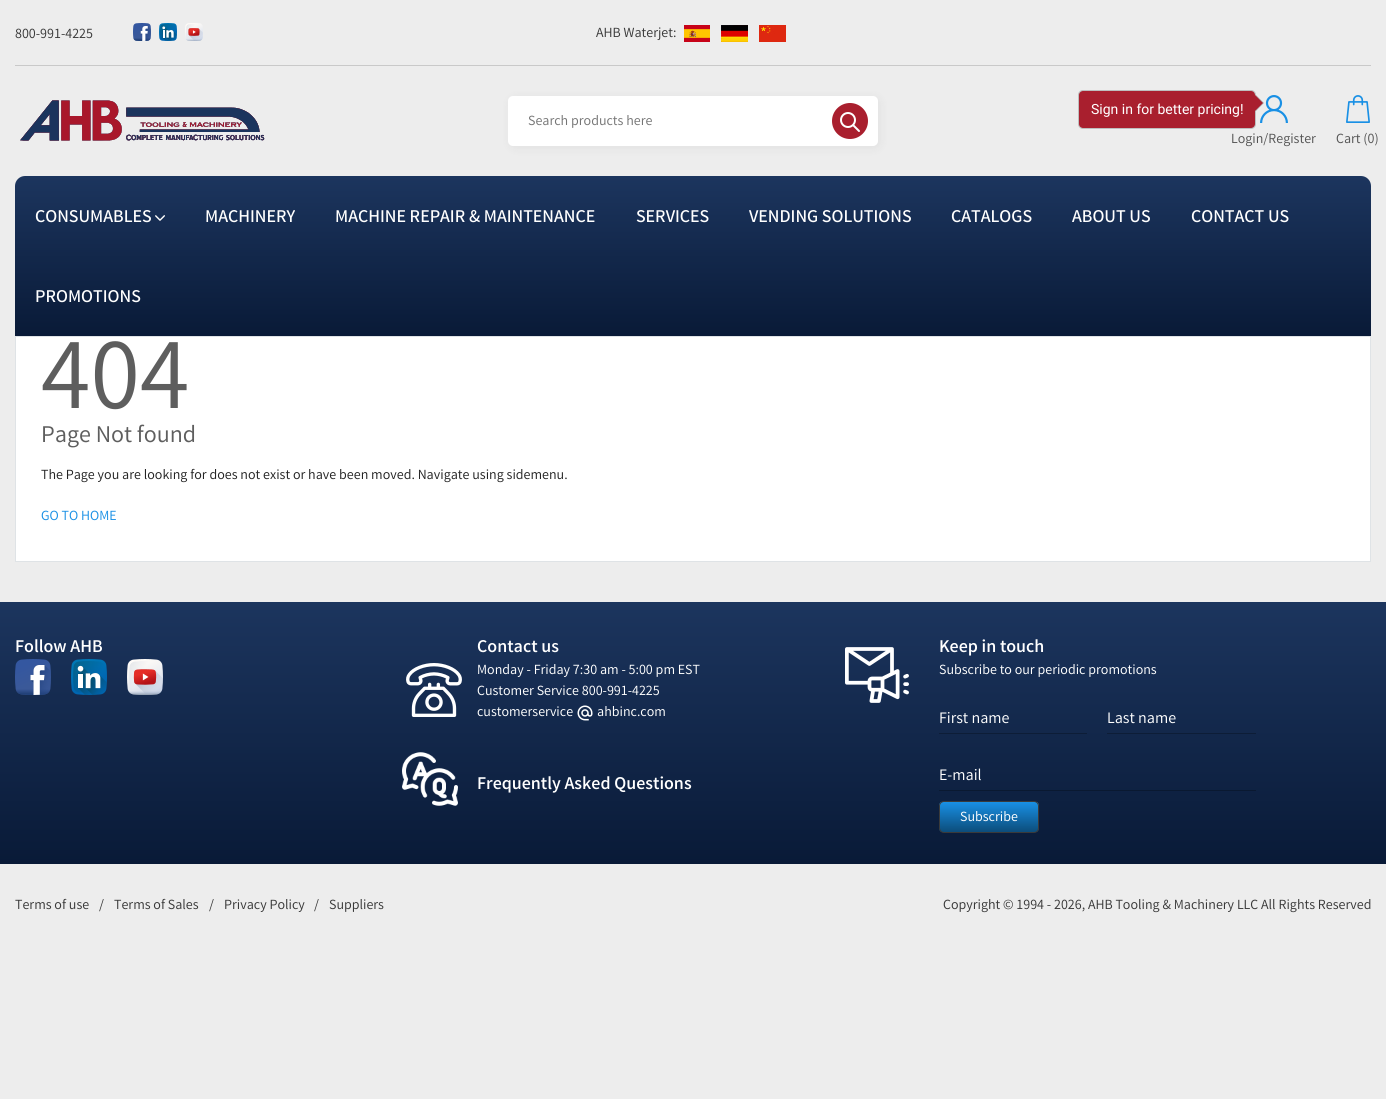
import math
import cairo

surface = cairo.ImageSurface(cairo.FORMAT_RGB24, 1386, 1099)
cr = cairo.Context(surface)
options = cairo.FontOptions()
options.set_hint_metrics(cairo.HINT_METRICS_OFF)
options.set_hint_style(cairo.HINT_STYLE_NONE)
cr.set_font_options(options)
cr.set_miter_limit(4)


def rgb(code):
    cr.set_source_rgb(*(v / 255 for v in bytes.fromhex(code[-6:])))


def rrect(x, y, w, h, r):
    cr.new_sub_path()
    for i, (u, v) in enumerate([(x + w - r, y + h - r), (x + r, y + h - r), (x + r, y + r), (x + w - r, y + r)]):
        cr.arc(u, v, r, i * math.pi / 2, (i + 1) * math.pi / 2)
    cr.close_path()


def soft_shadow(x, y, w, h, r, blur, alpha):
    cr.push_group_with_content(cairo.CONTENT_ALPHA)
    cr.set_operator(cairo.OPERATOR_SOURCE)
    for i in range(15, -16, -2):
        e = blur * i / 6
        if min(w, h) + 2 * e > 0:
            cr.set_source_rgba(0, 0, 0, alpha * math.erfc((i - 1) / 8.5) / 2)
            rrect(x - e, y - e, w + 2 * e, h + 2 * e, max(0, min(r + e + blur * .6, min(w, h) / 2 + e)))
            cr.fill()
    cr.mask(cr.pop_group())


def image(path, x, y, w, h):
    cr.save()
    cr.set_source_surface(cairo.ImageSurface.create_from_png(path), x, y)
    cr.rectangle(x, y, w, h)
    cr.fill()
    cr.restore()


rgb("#ededed")
cr.paint()
image("img/1.png", 133, 23, 18, 18)
image("img/2.png", 159, 23, 18, 18)
image("img/3.png", 185, 23, 18, 18)
image("img/4.png", 684, 25, 26, 17)
image("img/5.png", 721, 25, 27, 17)
image("img/6.png", 759, 25, 27, 17)
rgb("#c9c9c9")
cr.rectangle(15, 65, 1356, 1)
cr.fill()
image("img/7.png", 20, 100, 245, 41)
rgb("#000000")
soft_shadow(510, 98, 370, 50, 5, 5, 0.05)
rgb("#ffffff")
rrect(508, 96, 370, 50, 5)
cr.fill()
rgb("#a91f2e")
cr.arc(850, 121, 18, 0, 2 * math.pi)
cr.fill()
image("img/8.png", 840, 112, 20, 20)
rrect(1079, 91, 176, 37, 4)
cr.fill()
rrect(1078.5, 90.5, 177, 38, 4.5)
cr.set_source_rgba(0, 0, 0, 0.2)
cr.set_line_width(1)
cr.stroke()
image("img/9.png", 1260, 95, 28, 28)
rgb("#b2b2b2")
cr.new_path()
cr.move_to(1256, 111)
cr.line_to(1256, 95)
cr.line_to(1264, 103)
cr.close_path()
cr.fill()
rgb("#a91f2e")
cr.new_path()
cr.move_to(1255, 111)
cr.line_to(1255, 95)
cr.line_to(1263, 103)
cr.close_path()
cr.fill()
image("img/10.png", 1346, 95, 24, 28)
gradient = cairo.LinearGradient(693, 176, 693, 336)
gradient.add_color_stop_rgba(0, 0.11, 0.208, 0.369, 1)
gradient.add_color_stop_rgba(1, 0.035, 0.102, 0.216, 1)
cr.set_source(gradient)
cr.new_path()
cr.move_to(25, 176)
cr.line_to(1361, 176)
cr.curve_to(1366.5, 176, 1371, 180.5, 1371, 186)
cr.line_to(1371, 336)
cr.line_to(15, 336)
cr.line_to(15, 186)
cr.curve_to(15, 180.5, 19.5, 176, 25, 176)
cr.close_path()
cr.fill()
image("img/11.png", 155, 215, 10, 6)
rgb("#ffffff")
cr.rectangle(15.5, 336.5, 1355, 225)
cr.fill_preserve()
rgb("#dfe3e6")
cr.stroke()
gradient = cairo.LinearGradient(693, 602, 693, 864)
gradient.add_color_stop_rgba(0, 0.11, 0.208, 0.369, 1)
gradient.add_color_stop_rgba(1, 0.035, 0.102, 0.216, 1)
cr.set_source(gradient)
cr.rectangle(0, 602, 1386, 262)
cr.fill()
image("img/12.png", 15, 659, 36, 36)
image("img/13.png", 71, 659, 36, 36)
image("img/14.png", 127, 659, 36, 36)
image("img/15.png", 406, 663, 56, 54)
image("img/16.png", 577, 705, 16, 16)
image("img/17.png", 402, 752, 56, 54)
image("img/18.png", 845, 647, 64, 56)
for x, y, w, h, color in [
    (939, 733, 148, 1, "#0d1d37"),
    (1107, 733, 149, 1, "#0d1d37"),
    (939, 790, 317, 1, "#0a1931"),
]:
    rgb(color)
    cr.rectangle(x, y, w, h)
    cr.fill()
cr.save()
rrect(939, 801, 100, 32, 5)
cr.clip()
gradient = cairo.LinearGradient(989, 802, 989, 832)
gradient.add_color_stop_rgba(0, 0.098, 0.565, 0.898, 1)
gradient.add_color_stop_rgba(1, 0.047, 0.302, 0.482, 1)
cr.set_source(gradient)
cr.rectangle(939, 802, 100, 30)
cr.fill()
cr.restore()
rrect(939.5, 801.5, 99, 31, 4.5)
rgb("#3a3a3a")
cr.stroke()
cr.select_font_face("Varta")
cr.set_font_size(14)
rgb("#393939")
cr.move_to(15, 38)
cr.show_text("800-991-4225")
cr.move_to(596, 37)
cr.show_text("AHB Waterjet:")
rgb("#757575")
cr.move_to(528, 125)
cr.show_text("Search products here")
cr.select_font_face("Roboto")
rgb("#ffffff")
cr.move_to(1091, 114)
cr.show_text("Sign in for better pricing!")
cr.select_font_face("Varta")
rgb("#555555")
cr.move_to(1231, 143)
cr.show_text("Login/Register")
cr.move_to(1336, 143)
cr.show_text("Cart (0)")
cr.select_font_face("Varta SemiBold")
cr.set_font_size(18)
rgb("#ffffff")
for x, y, s in [
    (35, 222, "CONSUMABLES"),
    (205, 222, "MACHINERY"),
    (335, 222, "MACHINE REPAIR & MAINTENANCE"),
    (636, 222, "SERVICES"),
    (749, 222, "VENDING SOLUTIONS"),
    (951, 222, "CATALOGS"),
    (1072, 222, "ABOUT US"),
    (1191, 222, "CONTACT US"),
    (35, 302, "PROMOTIONS"),
]:
    cr.move_to(x, y)
    cr.show_text(s)
cr.select_font_face("Varta")
cr.set_font_size(100)
rgb("#5e5e5e")
cr.move_to(41, 408)
cr.show_text("404")
cr.set_font_size(24)
cr.move_to(41, 442)
cr.show_text("Page Not found")
cr.set_font_size(14)
rgb("#242424")
cr.move_to(41, 479)
cr.show_text("The Page you are looking for does not exist or have been moved. Navigate using sidemenu.")
rgb("#1990e5")
cr.move_to(41, 520)
cr.show_text("GO TO HOME")
cr.select_font_face("Varta", cairo.FONT_SLANT_NORMAL, cairo.FONT_WEIGHT_BOLD)
cr.set_font_size(18)
rgb("#ffffff")
cr.move_to(15, 652)
cr.show_text("Follow AHB")
cr.move_to(477, 652)
cr.show_text("Contact us")
cr.select_font_face("Varta")
cr.set_font_size(14)
for x, y, s in [
    (477, 674, "Monday - Friday 7:30 am - 5:00 pm EST"),
    (477, 695, "Customer Service 800-991-4225"),
    (477, 716, "customerservice"),
    (597, 716, "ahbinc.com"),
]:
    cr.move_to(x, y)
    cr.show_text(s)
cr.select_font_face("Varta", cairo.FONT_SLANT_NORMAL, cairo.FONT_WEIGHT_BOLD)
cr.set_font_size(18)
cr.move_to(477, 789)
cr.show_text("Frequently Asked Questions")
cr.move_to(939, 652)
cr.show_text("Keep in touch")
cr.select_font_face("Varta")
cr.set_font_size(14)
cr.move_to(939, 674)
cr.show_text("Subscribe to our periodic promotions")
cr.set_font_size(16)
for x, y, s in [
    (939, 723, "First name"),
    (1107, 723, "Last name"),
    (939, 780, "E-mail"),
]:
    cr.move_to(x, y)
    cr.show_text(s)
cr.set_font_size(14)
cr.move_to(960, 821)
cr.show_text("Subscribe")
rgb("#393939")
for x, y, s in [
    (15, 909, "Terms of use"),
    (99, 909, "/"),
    (114, 909, "Terms of Sales"),
    (209, 909, "/"),
    (224, 909, "Privacy Policy"),
    (314, 909, "/"),
    (329, 909, "Suppliers"),
    (943, 909, "Copyright © 1994 - 2026, AHB Tooling & Machinery LLC All Rights Reserved"),
]:
    cr.move_to(x, y)
    cr.show_text(s)
surface.write_to_png("page.png")
